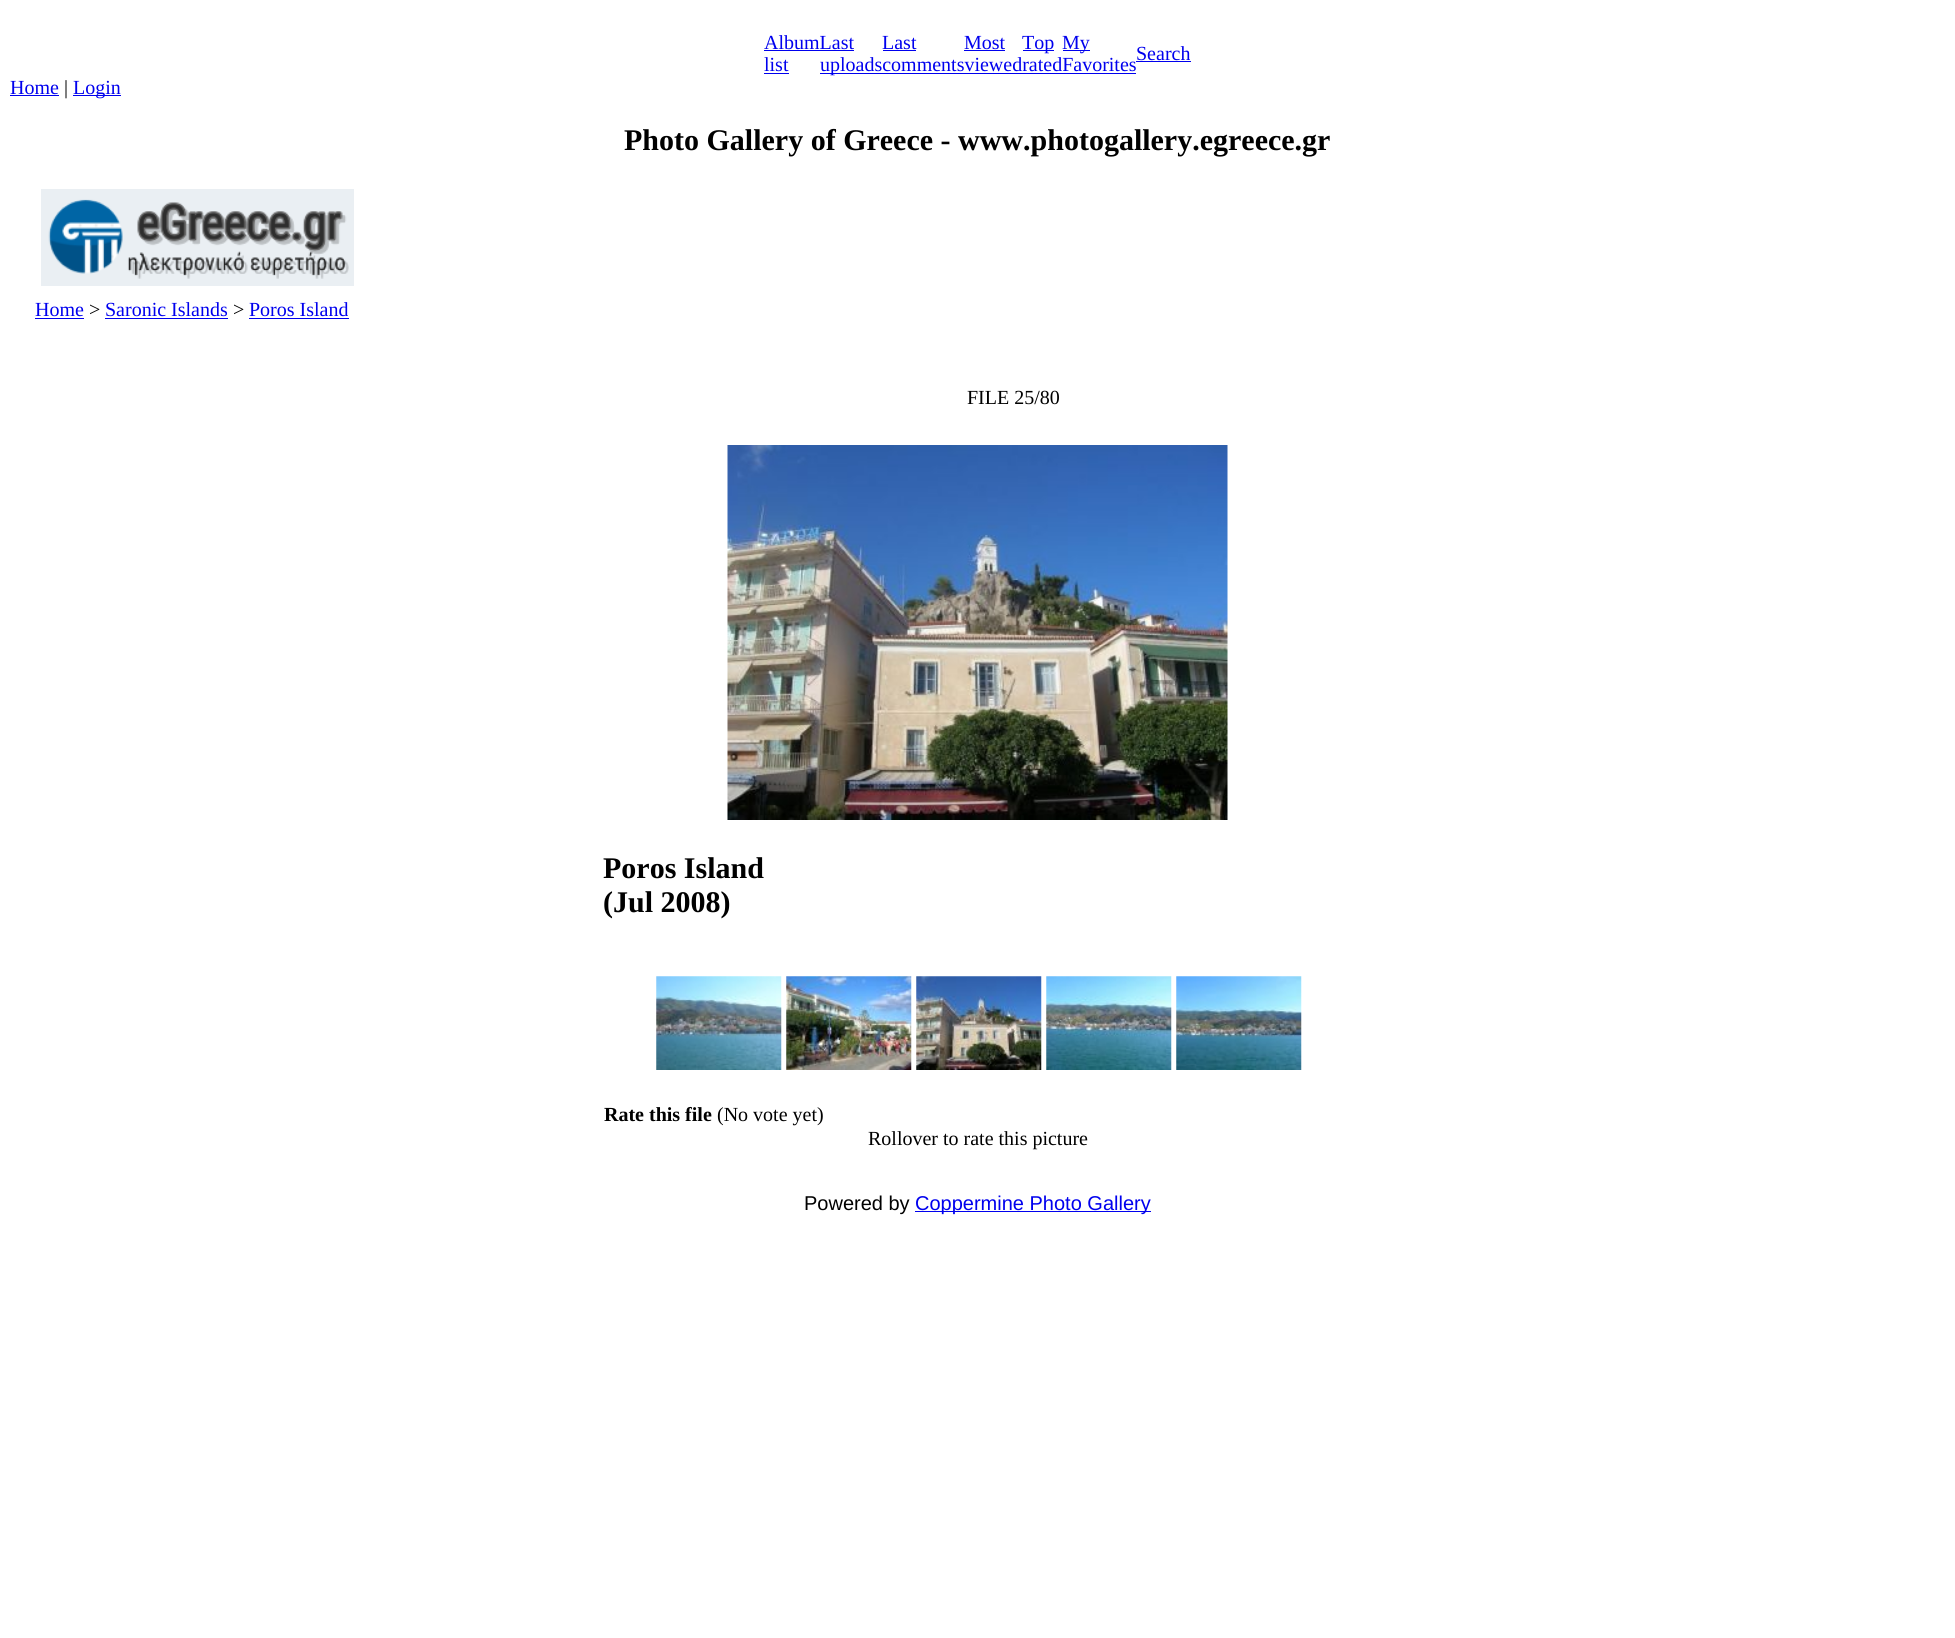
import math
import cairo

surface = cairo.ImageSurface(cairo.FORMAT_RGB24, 1955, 1638)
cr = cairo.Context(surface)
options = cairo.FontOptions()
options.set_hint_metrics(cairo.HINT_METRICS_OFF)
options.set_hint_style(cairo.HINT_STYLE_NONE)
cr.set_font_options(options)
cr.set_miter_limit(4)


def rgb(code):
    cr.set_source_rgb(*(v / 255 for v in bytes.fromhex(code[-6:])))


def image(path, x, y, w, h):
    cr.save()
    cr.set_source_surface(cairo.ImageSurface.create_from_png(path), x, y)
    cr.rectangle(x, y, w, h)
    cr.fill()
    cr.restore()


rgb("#ffffff")
cr.paint()
for x, y, w, h, color in [
    (764, 50, 90, 1, "#0000ee"),
    (764, 73, 25, 1, "#0000ee"),
    (883, 50, 33, 1, "#0000ee"),
    (964, 50, 41, 1, "#0000ee"),
    (1023, 50, 31, 1, "#0000ee"),
    (1063, 50, 27, 1, "#0000ee"),
    (1136, 61, 55, 1, "#0000ee"),
    (820, 73, 316, 1, "#0000ee"),
    (10, 95, 49, 1, "#0000ee"),
    (73, 95, 48, 1, "#0000ee"),
    (41, 189, 313, 97, "#eaeff3"),
]:
    rgb(color)
    cr.rectangle(x, y, w, h)
    cr.fill()
image("img/1.png", 48, 199, 301, 80)
for x, y, w, h, color in [
    (35, 318, 49, 1, "#0000ee"),
    (105, 318, 123, 1, "#0000ee"),
    (249, 318, 100, 1, "#0000ee"),
]:
    rgb(color)
    cr.rectangle(x, y, w, h)
    cr.fill()
image("img/2.png", 727, 445, 501, 375)
image("img/3.png", 656, 976, 126, 94)
image("img/4.png", 786, 976, 126, 94)
image("img/5.png", 916, 976, 126, 94)
image("img/6.png", 1046, 976, 126, 94)
image("img/7.png", 1176, 976, 126, 94)
cr.rectangle(915, 1211, 236, 1)
cr.fill()
cr.select_font_face("Liberation Serif")
cr.set_font_size(20)
for x, y, s in [
    (764, 49, "AlbumLast"),
    (764, 71, "list"),
    (882, 49, "Last"),
    (964, 49, "Most"),
    (1022, 49, "Top"),
    (1062, 49, "My"),
    (1136, 60, "Search"),
    (820, 71, "uploadscommentsviewedratedFavorites"),
    (10, 94, "Home"),
]:
    cr.move_to(x, y)
    cr.show_text(s)
rgb("#000000")
cr.move_to(64, 94)
cr.show_text("|")
rgb("#0000ee")
cr.move_to(73, 94)
cr.show_text("Login")
cr.select_font_face("Liberation Serif", cairo.FONT_SLANT_NORMAL, cairo.FONT_WEIGHT_BOLD)
cr.set_font_size(30)
rgb("#000000")
cr.move_to(624, 150)
cr.show_text("Photo Gallery of Greece - www.photogallery.egreece.gr")
cr.select_font_face("Liberation Serif")
cr.set_font_size(20)
rgb("#0000ee")
cr.move_to(35, 316)
cr.show_text("Home")
rgb("#000000")
cr.move_to(89, 316)
cr.show_text(">")
rgb("#0000ee")
cr.move_to(105, 316)
cr.show_text("Saronic Islands")
rgb("#000000")
cr.move_to(233, 316)
cr.show_text(">")
rgb("#0000ee")
cr.move_to(249, 316)
cr.show_text("Poros Island")
rgb("#000000")
cr.move_to(967, 404)
cr.show_text("FILE 25/80")
cr.select_font_face("Liberation Serif", cairo.FONT_SLANT_NORMAL, cairo.FONT_WEIGHT_BOLD)
cr.set_font_size(30)
cr.move_to(603, 878)
cr.show_text("Poros Island")
cr.move_to(603, 912)
cr.show_text("(Jul 2008)")
cr.set_font_size(20)
cr.move_to(604, 1121)
cr.show_text("Rate this file")
cr.select_font_face("Liberation Serif")
cr.move_to(717, 1121)
cr.show_text("(No vote yet)")
cr.move_to(868, 1145)
cr.show_text("Rollover to rate this picture")
cr.select_font_face("Liberation Sans")
cr.move_to(804, 1210)
cr.show_text("Powered by")
rgb("#0000ee")
cr.move_to(915, 1210)
cr.show_text("Coppermine Photo Gallery")
surface.write_to_png("page.png")
